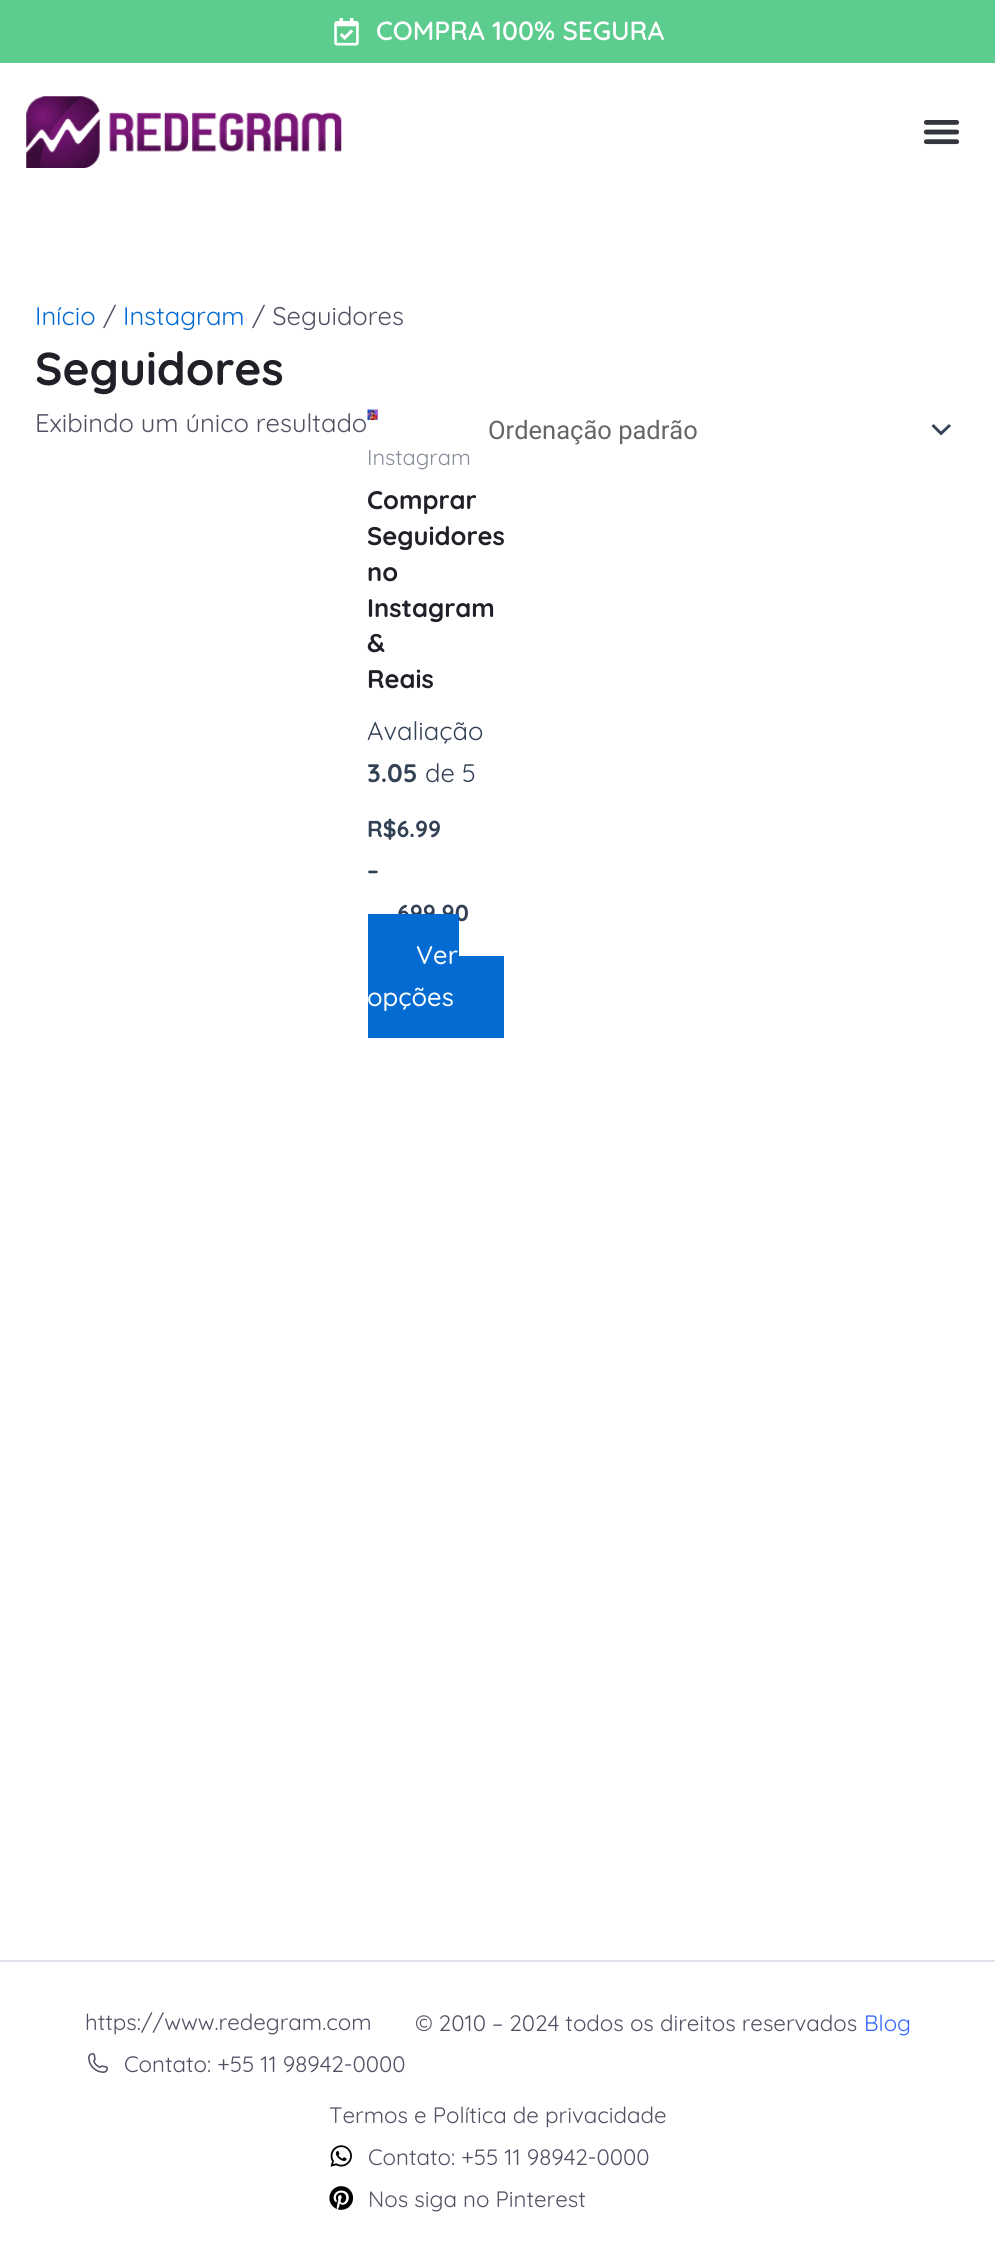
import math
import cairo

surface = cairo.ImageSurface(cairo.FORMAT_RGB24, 995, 2257)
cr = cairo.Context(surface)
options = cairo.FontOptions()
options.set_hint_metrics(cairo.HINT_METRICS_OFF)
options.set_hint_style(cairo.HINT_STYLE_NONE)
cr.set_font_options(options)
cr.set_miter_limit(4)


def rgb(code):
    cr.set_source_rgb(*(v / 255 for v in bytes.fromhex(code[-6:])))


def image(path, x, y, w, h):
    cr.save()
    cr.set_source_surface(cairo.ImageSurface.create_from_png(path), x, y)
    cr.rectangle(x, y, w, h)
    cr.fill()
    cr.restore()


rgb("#ffffff")
cr.paint()
rgb("#5dcc8f")
cr.rectangle(0, 0, 995, 63)
cr.fill()
image("img/1.png", 334, 18, 25, 28)
image("img/2.png", 26, 96, 316, 72)
image("img/3.png", 923, 120, 37, 25)
rgb("#334155")
cr.new_path()
cr.move_to(931.5, 426)
cr.line_to(941, 435.5)
cr.line_to(951, 426)
cr.line_to(949, 424)
cr.line_to(941, 431.5)
cr.line_to(933.5, 424)
cr.close_path()
cr.fill()
image("img/4.png", 367, 409, 11, 11)
rgb("#046bd2")
cr.rectangle(368, 956, 136, 82)
cr.fill()
rgb("#e0e0eb")
cr.rectangle(0, 1960, 995, 2)
cr.fill()
image("img/5.png", 88, 2053, 20, 20)
image("img/6.png", 330, 2145, 22, 22)
image("img/7.png", 329, 2186, 25, 24)
cr.select_font_face("Quicksand SemiBold")
cr.set_font_size(26.25)
rgb("#ffffff")
cr.move_to(376, 40)
cr.show_text("COMPRA 100% SEGURA")
cr.select_font_face("Quicksand")
cr.set_font_size(25.5)
rgb("#046bd2")
cr.move_to(35, 325)
cr.show_text("Início")
rgb("#515063")
cr.move_to(103, 325)
cr.show_text("/")
rgb("#046bd2")
cr.move_to(123, 325)
cr.show_text("Instagram")
rgb("#515063")
cr.move_to(252, 325)
cr.show_text("/ Seguidores")
cr.select_font_face("Quicksand", cairo.FONT_SLANT_NORMAL, cairo.FONT_WEIGHT_BOLD)
cr.set_font_size(46)
rgb("#202029")
cr.move_to(35, 385)
cr.show_text("Seguidores")
cr.select_font_face("Quicksand")
cr.set_font_size(25.5)
rgb("#515063")
cr.move_to(35, 432)
cr.show_text("Exibindo um único resultado")
cr.select_font_face("Roboto")
rgb("#666666")
cr.move_to(488, 439)
cr.show_text("Ordenação padrão")
cr.select_font_face("Quicksand")
cr.set_font_size(21.75)
rgb("#858d99")
cr.move_to(367, 465)
cr.show_text("Instagram")
cr.select_font_face("Quicksand", cairo.FONT_SLANT_NORMAL, cairo.FONT_WEIGHT_BOLD)
cr.set_font_size(25.5)
rgb("#202029")
for x, y, s in [
    (367, 509, "Comprar"),
    (367, 545, "Seguidores"),
    (367, 581, "no"),
    (367, 617, "Instagram"),
    (367, 652, "&"),
    (367, 688, "Reais"),
]:
    cr.move_to(x, y)
    cr.show_text(s)
cr.select_font_face("Quicksand")
rgb("#334155")
cr.move_to(367, 740)
cr.show_text("Avaliação")
cr.select_font_face("Quicksand", cairo.FONT_SLANT_NORMAL, cairo.FONT_WEIGHT_BOLD)
cr.move_to(367, 782)
cr.show_text("3.05")
cr.select_font_face("Quicksand")
cr.move_to(425, 782)
cr.show_text("de 5")
cr.select_font_face("Quicksand", cairo.FONT_SLANT_NORMAL, cairo.FONT_WEIGHT_BOLD)
cr.set_font_size(23)
for x, y, s in [
    (367, 837, "R$6.99"),
    (367, 879, "–"),
    (397, 921, "699.90"),
]:
    cr.move_to(x, y)
    cr.show_text(s)
rgb("#046bd2")
cr.rectangle(368, 914, 91, 42)
cr.fill()
cr.select_font_face("Quicksand Medium")
cr.set_font_size(25.5)
rgb("#ffffff")
cr.move_to(416, 964)
cr.show_text("Ver")
cr.move_to(367, 1006)
cr.show_text("opções")
cr.select_font_face("Quicksand")
cr.set_font_size(22.3)
rgb("#515063")
for x, y, s in [
    (85, 2030, "https://www.redegram.com"),
    (124, 2072, "Contato: +55 11 98942-0000"),
    (415, 2031, "© 2010 – 2024 todos os direitos reservados"),
]:
    cr.move_to(x, y)
    cr.show_text(s)
rgb("#3366ff")
cr.move_to(864, 2031)
cr.show_text("Blog")
rgb("#515063")
for x, y, s in [
    (329, 2123, "Termos e Política de privacidade"),
    (368, 2165, "Contato: +55 11 98942-0000"),
    (368, 2207, "Nos siga no Pinterest"),
]:
    cr.move_to(x, y)
    cr.show_text(s)
surface.write_to_png("page.png")
